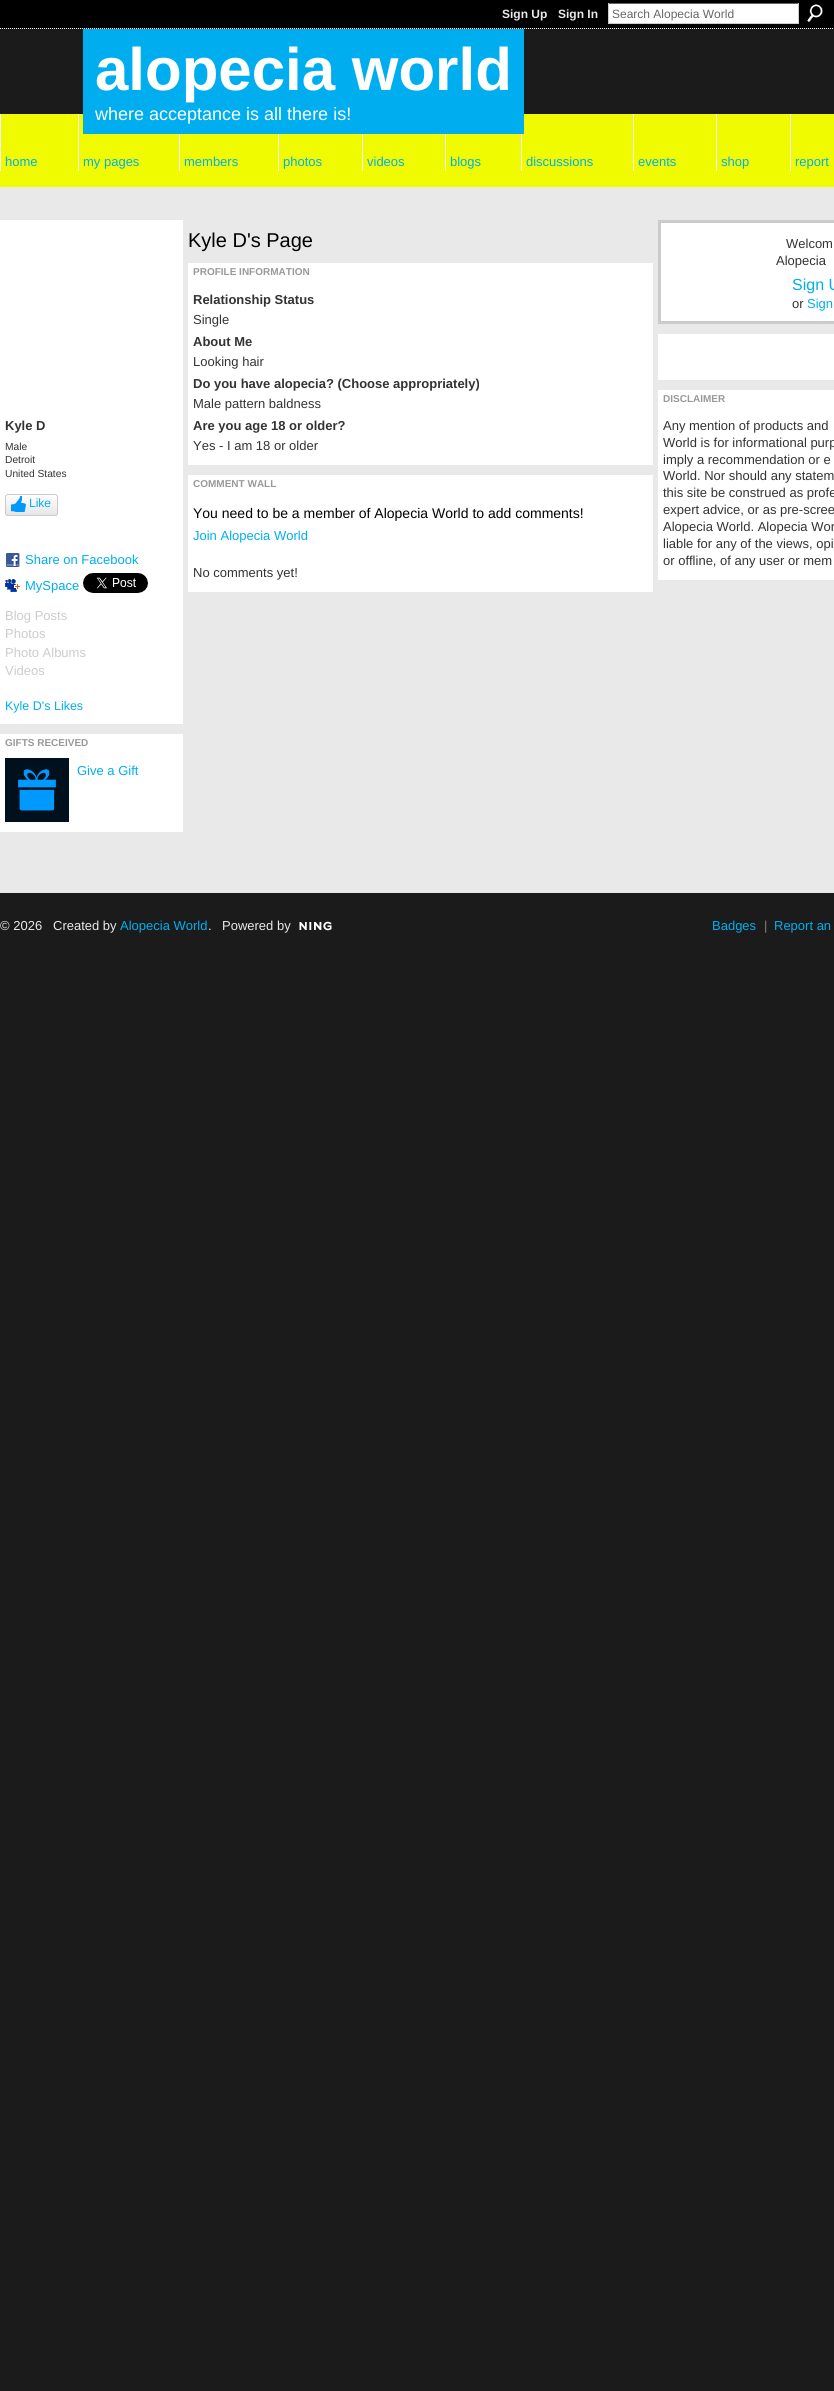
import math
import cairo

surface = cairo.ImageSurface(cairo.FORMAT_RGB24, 834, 2391)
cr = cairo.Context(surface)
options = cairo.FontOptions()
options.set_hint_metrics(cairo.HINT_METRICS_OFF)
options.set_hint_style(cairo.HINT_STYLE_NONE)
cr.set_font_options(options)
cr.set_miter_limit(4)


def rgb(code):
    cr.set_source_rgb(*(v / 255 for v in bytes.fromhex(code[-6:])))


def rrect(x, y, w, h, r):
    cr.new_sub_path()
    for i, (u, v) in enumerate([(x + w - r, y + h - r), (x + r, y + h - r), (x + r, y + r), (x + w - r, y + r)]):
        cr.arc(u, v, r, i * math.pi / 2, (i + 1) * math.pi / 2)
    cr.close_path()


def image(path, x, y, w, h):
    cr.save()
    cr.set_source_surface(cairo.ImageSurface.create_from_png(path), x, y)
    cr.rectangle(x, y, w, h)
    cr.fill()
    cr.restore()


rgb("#1b1b1b")
cr.paint()
for x, y, w, h, color in [
    (0, 0, 834, 28, "#000000"),
    (609, 4, 189, 19, "#ffffff"),
    (608, 3, 191, 1, "#666666"),
    (798, 3, 1, 21, "#cccccc"),
    (608, 23, 191, 1, "#cccccc"),
    (608, 3, 1, 21, "#cccccc"),
]:
    rgb(color)
    cr.rectangle(x, y, w, h)
    cr.fill()
image("img/1.png", 807, 4, 16, 18)
cr.new_path()
cr.move_to(0, 28.5)
cr.line_to(834, 28.5)
rgb("#ffffff")
cr.set_line_width(1)
cr.set_dash([1, 1])
cr.stroke()
for x, y, w, h, color in [
    (0, 114, 834, 73, "#f0fb00"),
    (83, 29, 441, 105, "#00aeef"),
    (0, 114, 1, 57, "#ffffff"),
    (78, 114, 1, 57, "#ffffff"),
    (179, 134, 1, 37, "#ffffff"),
    (278, 134, 1, 37, "#ffffff"),
    (362, 134, 1, 37, "#ffffff"),
    (445, 134, 1, 37, "#ffffff"),
    (521, 134, 1, 37, "#ffffff"),
    (633, 114, 1, 57, "#ffffff"),
    (716, 114, 1, 57, "#ffffff"),
    (790, 114, 1, 57, "#ffffff"),
    (0, 187, 834, 706, "#e9e9e9"),
    (0, 220, 183, 504, "#ffffff"),
]:
    rgb(color)
    cr.rectangle(x, y, w, h)
    cr.fill()
image("img/2.png", 5, 497, 53, 19)
rrect(5.5, 494.5, 52, 21, 2.5)
rgb("#cbcbcb")
cr.set_dash([])
cr.stroke()
image("img/3.png", 11, 496, 15, 16)
image("img/4.png", 6, 553, 14, 14)
image("img/5.png", 5, 579, 15, 13)
image("img/6.png", 83, 573, 65, 20)
rgb("#ffffff")
cr.rectangle(0, 734, 183, 98)
cr.fill()
image("img/7.png", 5, 758, 64, 64)
cr.rectangle(188, 263, 465, 202)
cr.fill()
cr.rectangle(188, 475, 465, 117)
cr.fill()
cr.rectangle(659.5, 221.5, 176, 101)
cr.fill_preserve()
rgb("#cbcbcb")
cr.set_line_width(3)
cr.stroke()
rgb("#ffffff")
cr.rectangle(658, 334, 176, 46)
cr.fill()
cr.rectangle(658, 390, 176, 190)
cr.fill()
image("img/8.png", 299, 921, 33, 10)
cr.select_font_face("Liberation Sans", cairo.FONT_SLANT_NORMAL, cairo.FONT_WEIGHT_BOLD)
cr.set_font_size(12)
rgb("#e9e9e9")
cr.move_to(502, 18)
cr.show_text("Sign Up")
cr.move_to(558, 18)
cr.show_text("Sign In")
cr.select_font_face("Liberation Sans")
rgb("#666666")
cr.move_to(612, 18)
cr.show_text("Search Alopecia World")
cr.select_font_face("Liberation Sans", cairo.FONT_SLANT_NORMAL, cairo.FONT_WEIGHT_BOLD)
cr.set_font_size(60)
rgb("#ffffff")
cr.move_to(95, 90)
cr.show_text("alopecia world")
cr.select_font_face("Liberation Sans")
cr.set_font_size(18)
cr.move_to(95, 120)
cr.show_text("where acceptance is all there is!")
cr.set_font_size(13)
rgb("#00aeef")
for x, y, s in [
    (5, 166, "home"),
    (83, 166, "my pages"),
    (184, 166, "members"),
    (283, 166, "photos"),
    (367, 166, "videos"),
    (450, 166, "blogs"),
    (526, 166, "discussions"),
    (638, 166, "events"),
    (721, 166, "shop"),
    (795, 166, "report"),
]:
    cr.move_to(x, y)
    cr.show_text(s)
cr.select_font_face("Liberation Sans", cairo.FONT_SLANT_NORMAL, cairo.FONT_WEIGHT_BOLD)
rgb("#333333")
cr.move_to(5, 430)
cr.show_text("Kyle D")
cr.select_font_face("Liberation Sans")
cr.set_font_size(10.25)
for x, y, s in [
    (5, 450, "Male"),
    (5, 463, "Detroit"),
    (5, 477, "United States"),
]:
    cr.move_to(x, y)
    cr.show_text(s)
cr.set_font_size(12)
rgb("#00aeef")
cr.move_to(29, 507)
cr.show_text("Like")
cr.set_font_size(13)
cr.move_to(25, 564)
cr.show_text("Share on Facebook")
cr.move_to(25, 590)
cr.show_text("MySpace")
rgb("#cccccc")
for x, y, s in [
    (5, 620, "Blog Posts"),
    (5, 638, "Photos"),
    (5, 657, "Photo Albums"),
    (5, 675, "Videos"),
]:
    cr.move_to(x, y)
    cr.show_text(s)
cr.set_font_size(12.5)
rgb("#00aeef")
cr.move_to(5, 710)
cr.show_text("Kyle D's Likes")
cr.select_font_face("Liberation Sans", cairo.FONT_SLANT_NORMAL, cairo.FONT_WEIGHT_BOLD)
cr.set_font_size(10)
rgb("#999999")
cr.move_to(5, 746)
cr.show_text("GIFTS RECEIVED")
cr.select_font_face("Liberation Sans")
cr.set_font_size(13)
rgb("#00aeef")
cr.move_to(77, 775)
cr.show_text("Give a Gift")
cr.set_font_size(20)
rgb("#000000")
cr.move_to(188, 247)
cr.show_text("Kyle D's Page")
cr.select_font_face("Liberation Sans", cairo.FONT_SLANT_NORMAL, cairo.FONT_WEIGHT_BOLD)
cr.set_font_size(10)
rgb("#999999")
cr.move_to(193, 275)
cr.show_text("PROFILE INFORMATION")
cr.set_font_size(13)
rgb("#333333")
cr.move_to(193, 304)
cr.show_text("Relationship Status")
cr.select_font_face("Liberation Sans")
cr.move_to(193, 324)
cr.show_text("Single")
cr.select_font_face("Liberation Sans", cairo.FONT_SLANT_NORMAL, cairo.FONT_WEIGHT_BOLD)
cr.move_to(193, 346)
cr.show_text("About Me")
cr.select_font_face("Liberation Sans")
cr.move_to(193, 366)
cr.show_text("Looking hair")
cr.select_font_face("Liberation Sans", cairo.FONT_SLANT_NORMAL, cairo.FONT_WEIGHT_BOLD)
cr.move_to(193, 388)
cr.show_text("Do you have alopecia? (Choose appropriately)")
cr.select_font_face("Liberation Sans")
cr.move_to(193, 408)
cr.show_text("Male pattern baldness")
cr.select_font_face("Liberation Sans", cairo.FONT_SLANT_NORMAL, cairo.FONT_WEIGHT_BOLD)
cr.move_to(193, 430)
cr.show_text("Are you age 18 or older?")
cr.select_font_face("Liberation Sans")
cr.move_to(193, 450)
cr.show_text("Yes - I am 18 or older")
cr.select_font_face("Liberation Sans", cairo.FONT_SLANT_NORMAL, cairo.FONT_WEIGHT_BOLD)
cr.set_font_size(10)
rgb("#999999")
cr.move_to(193, 487)
cr.show_text("COMMENT WALL")
cr.select_font_face("Liberation Sans")
cr.set_font_size(14)
rgb("#000000")
cr.move_to(193, 518)
cr.show_text("You need to be a member of Alopecia World to add comments!")
cr.set_font_size(13)
rgb("#00aeef")
cr.move_to(193, 540)
cr.show_text("Join Alopecia World")
rgb("#333333")
for x, y, s in [
    (193, 577, "No comments yet!"),
    (786, 248, "Welcom"),
    (776, 265, "Alopecia"),
]:
    cr.move_to(x, y)
    cr.show_text(s)
cr.set_font_size(16)
rgb("#00aeef")
cr.move_to(792, 290)
cr.show_text("Sign U")
cr.set_font_size(13)
rgb("#333333")
cr.move_to(792, 308)
cr.show_text("or")
rgb("#00aeef")
cr.move_to(807, 308)
cr.show_text("Sign")
cr.select_font_face("Liberation Sans", cairo.FONT_SLANT_NORMAL, cairo.FONT_WEIGHT_BOLD)
cr.set_font_size(10)
rgb("#999999")
cr.move_to(663, 402)
cr.show_text("DISCLAIMER")
cr.select_font_face("Liberation Sans")
cr.set_font_size(13)
rgb("#333333")
for x, y, s in [
    (663, 430, "Any mention of products and"),
    (663, 447, "World is for informational purp"),
    (663, 464, "imply a recommendation or e"),
    (663, 480, "World. Nor should any statem"),
    (663, 497, "this site be construed as profe"),
    (663, 514, "expert advice, or as pre-scree"),
    (663, 531, "Alopecia World. Alopecia Wor"),
    (663, 548, "liable for any of the views, opi"),
    (663, 565, "or offline, of any user or mem"),
]:
    cr.move_to(x, y)
    cr.show_text(s)
rgb("#e9e9e9")
cr.move_to(0, 930)
cr.show_text("© 2026")
cr.move_to(53, 930)
cr.show_text("Created by")
rgb("#00aeef")
cr.move_to(120, 930)
cr.show_text("Alopecia World")
rgb("#e9e9e9")
cr.move_to(208, 930)
cr.show_text(".")
cr.move_to(222, 930)
cr.show_text("Powered by")
rgb("#00aeef")
cr.move_to(712, 930)
cr.show_text("Badges")
rgb("#7f7f7f")
cr.move_to(764, 930)
cr.show_text("|")
rgb("#00aeef")
cr.move_to(774, 930)
cr.show_text("Report an")
surface.write_to_png("page.png")
